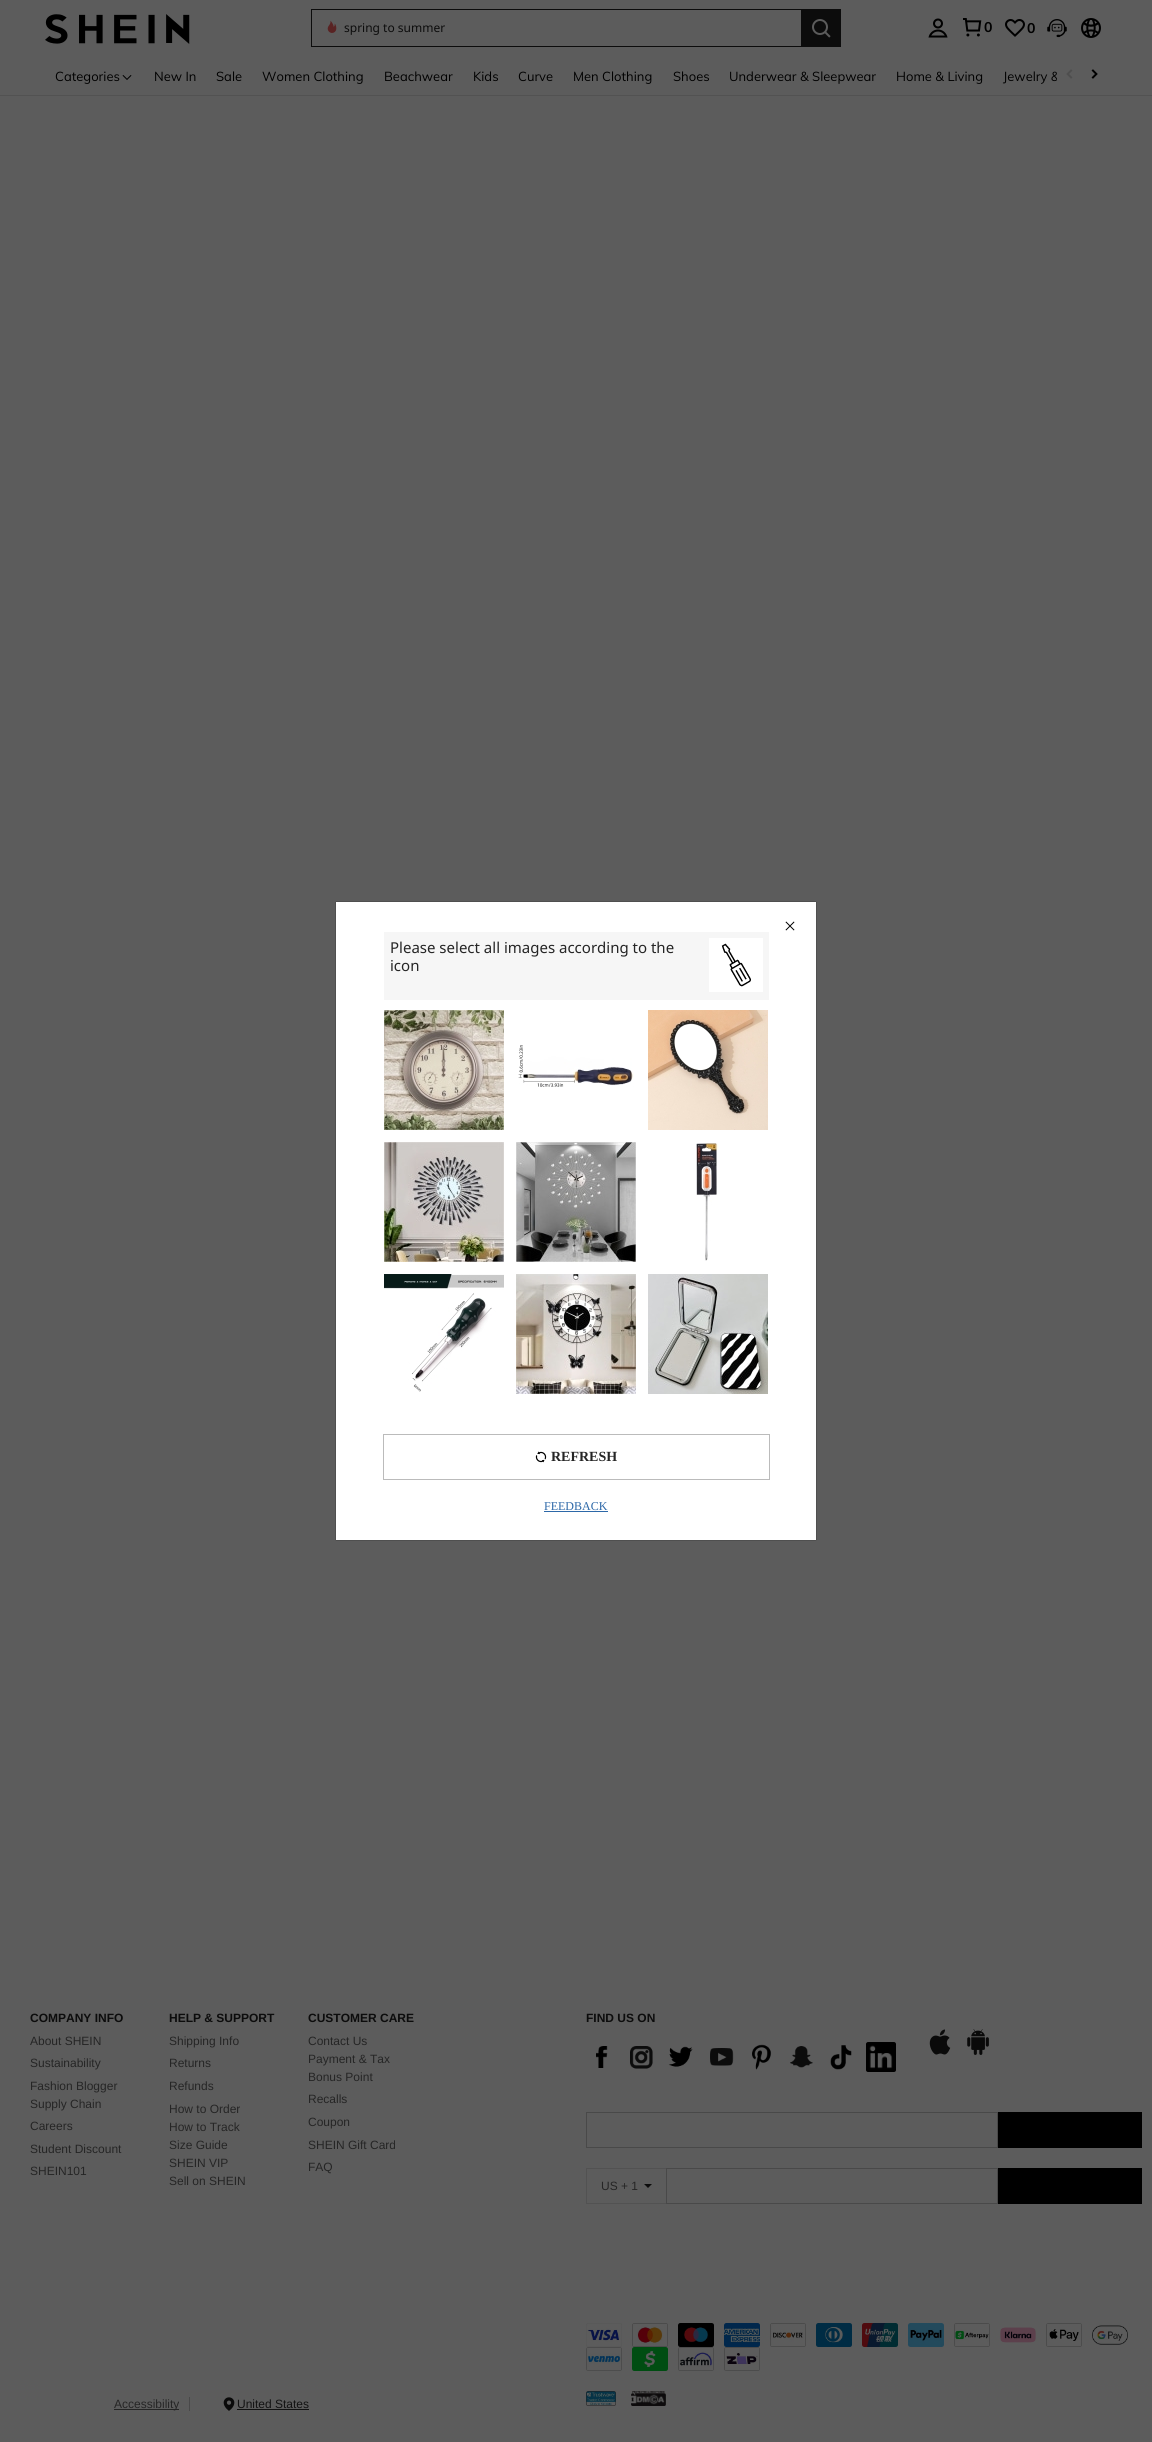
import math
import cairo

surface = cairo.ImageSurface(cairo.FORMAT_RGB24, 1152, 2442)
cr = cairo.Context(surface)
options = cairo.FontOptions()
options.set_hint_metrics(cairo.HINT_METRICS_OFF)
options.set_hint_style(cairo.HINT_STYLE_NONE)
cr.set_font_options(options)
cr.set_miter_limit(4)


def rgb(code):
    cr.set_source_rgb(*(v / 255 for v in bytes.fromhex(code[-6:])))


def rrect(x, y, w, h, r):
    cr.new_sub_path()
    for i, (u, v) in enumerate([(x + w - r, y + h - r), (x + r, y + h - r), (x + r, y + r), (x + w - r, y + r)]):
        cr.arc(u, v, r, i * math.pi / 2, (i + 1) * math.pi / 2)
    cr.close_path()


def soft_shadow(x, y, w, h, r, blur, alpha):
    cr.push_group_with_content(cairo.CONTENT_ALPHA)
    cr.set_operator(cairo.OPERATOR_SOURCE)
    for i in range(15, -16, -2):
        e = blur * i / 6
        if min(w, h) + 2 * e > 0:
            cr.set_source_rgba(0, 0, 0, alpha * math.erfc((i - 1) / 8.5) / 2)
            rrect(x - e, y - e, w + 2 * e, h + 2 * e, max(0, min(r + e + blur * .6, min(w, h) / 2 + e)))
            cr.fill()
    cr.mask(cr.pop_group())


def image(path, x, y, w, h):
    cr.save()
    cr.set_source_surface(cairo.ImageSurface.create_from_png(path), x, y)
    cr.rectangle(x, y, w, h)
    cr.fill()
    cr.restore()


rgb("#5c5c5c")
cr.paint()
image("img/1.png", 45, 14, 145, 30)
for x, y, w, h, color in [
    (311, 9, 490, 1, "#0c0c0c"),
    (311, 46, 490, 1, "#0c0c0c"),
    (311, 9, 1, 38, "#0c0c0c"),
]:
    rgb(color)
    cr.rectangle(x, y, w, h)
    cr.fill()
image("img/2.png", 327, 20, 10, 13)
cr.rectangle(801, 9, 40, 38)
cr.fill()
image("img/3.png", 812, 19, 19, 19)
image("img/4.png", 928, 18, 20, 20)
image("img/5.png", 963, 18, 19, 19)
image("img/6.png", 1005, 19, 20, 18)
image("img/7.png", 1047, 19, 20, 19)
image("img/8.png", 1081, 18, 20, 20)
rgb("#525252")
cr.rectangle(0, 95, 1152, 1)
cr.fill()
image("img/9.png", 122, 75, 10, 5)
image("img/10.png", 1066, 69, 7, 10)
image("img/11.png", 1091, 69, 7, 10)
image("img/12.png", 596, 2046, 12, 22)
image("img/13.png", 630, 2046, 23, 23)
image("img/14.png", 668, 2046, 25, 21)
image("img/15.png", 710, 2048, 24, 18)
image("img/16.png", 752, 2044, 20, 26)
image("img/17.png", 790, 2046, 23, 22)
image("img/18.png", 830, 2045, 22, 25)
image("img/19.png", 866, 2042, 30, 30)
image("img/20.png", 929, 2029, 22, 26)
image("img/21.png", 967, 2029, 22, 26)
cr.rectangle(586.5, 2112.5, 411, 35)
rgb("#494949")
cr.set_line_width(1)
cr.stroke()
for x, y, w, h, color in [
    (998, 2112, 144, 36, "#000000"),
    (586, 2168, 80, 1, "#525252"),
    (586, 2203, 80, 1, "#525252"),
    (586, 2168, 1, 36, "#525252"),
]:
    rgb(color)
    cr.rectangle(x, y, w, h)
    cr.fill()
rgb("#0c0c0c")
cr.new_path()
cr.move_to(644, 2184)
cr.line_to(652, 2184)
cr.line_to(648, 2188)
cr.close_path()
cr.fill()
cr.rectangle(666.5, 2168.5, 331, 35)
rgb("#494949")
cr.stroke()
rgb("#000000")
cr.rectangle(998, 2168, 144, 36)
cr.fill()
image("img/22.png", 586, 2323, 36, 24)
image("img/23.png", 632, 2323, 36, 24)
image("img/24.png", 678, 2323, 36, 24)
image("img/25.png", 724, 2323, 36, 24)
image("img/26.png", 770, 2323, 36, 24)
image("img/27.png", 816, 2323, 36, 24)
image("img/28.png", 862, 2323, 36, 24)
image("img/29.png", 908, 2323, 36, 24)
image("img/30.png", 954, 2323, 36, 24)
image("img/31.png", 1000, 2327, 36, 16)
image("img/32.png", 1046, 2323, 36, 24)
image("img/33.png", 1092, 2325, 36, 20)
image("img/34.png", 586, 2347, 36, 24)
image("img/35.png", 632, 2347, 36, 24)
image("img/36.png", 678, 2347, 36, 24)
image("img/37.png", 724, 2347, 36, 24)
rgb("#494949")
cr.rectangle(189, 2397, 1, 14)
cr.fill()
rgb("#252525")
cr.rectangle(114, 2409, 65, 1)
cr.fill()
image("img/38.png", 223, 2397, 12, 14)
rgb("#121212")
cr.rectangle(237, 2409, 72, 1)
cr.fill()
image("img/39.png", 586, 2391, 30, 15)
image("img/40.png", 631, 2391, 35, 15)
rgb("#000000")
soft_shadow(336, 902, 480, 638, 0, 0.5, 0.3)
soft_shadow(336, 902, 480, 638, 0, 0.5, 0.3)
rgb("#ffffff")
cr.rectangle(336, 902, 480, 638)
cr.fill()
image("img/41.png", 785, 921, 10, 10)
rgb("#f6f6f6")
cr.rectangle(384, 932, 385, 68)
cr.fill()
rgb("#ffffff")
cr.rectangle(709, 938, 54, 54)
cr.fill()
image("img/42.png", 721, 943, 30, 44)
image("img/43.png", 384, 1010, 120, 120)
image("img/44.png", 518, 1045, 116, 42)
image("img/45.png", 648, 1010, 120, 120)
image("img/46.png", 384, 1142, 120, 120)
image("img/47.png", 516, 1142, 120, 120)
image("img/48.png", 696, 1143, 23, 118)
image("img/49.png", 384, 1274, 120, 118)
image("img/50.png", 516, 1274, 120, 120)
image("img/51.png", 648, 1274, 120, 120)
cr.rectangle(383.5, 1434.5, 386, 45)
rgb("#bbbbbb")
cr.stroke()
image("img/52.png", 535, 1451, 12, 12)
rgb("#2d68a8")
cr.rectangle(544, 1511, 64, 1)
cr.fill()
cr.select_font_face("Noto Sans")
cr.set_font_size(12)
rgb("#0c0c0c")
cr.move_to(344, 32)
cr.show_text("spring to summer")
cr.select_font_face("Muli", cairo.FONT_SLANT_NORMAL, cairo.FONT_WEIGHT_BOLD)
cr.set_font_size(14)
rgb("#000000")
cr.move_to(984, 32)
cr.show_text("0")
cr.move_to(1027, 33)
cr.show_text("0")
cr.select_font_face("Muli")
cr.set_font_size(13)
for x, y, s in [
    (55, 81, "Categories"),
    (154, 81, "New In"),
    (216, 81, "Sale"),
    (262, 81, "Women Clothing"),
    (384, 81, "Beachwear"),
    (473, 81, "Kids"),
    (518, 81, "Curve"),
    (573, 81, "Men Clothing"),
    (673, 81, "Shoes"),
    (729, 81, "Underwear & Sleepwear"),
    (896, 81, "Home & Living"),
    (1003, 81, "Jewelry &"),
]:
    cr.move_to(x, y)
    cr.show_text(s)
rgb("#5c5c5c")
cr.rectangle(1057, 72, 3, 9)
cr.fill()
cr.select_font_face("Liberation Sans", cairo.FONT_SLANT_NORMAL, cairo.FONT_WEIGHT_BOLD)
cr.set_font_size(12)
rgb("#0c0c0c")
cr.move_to(30, 2022)
cr.show_text("COMPANY INFO")
cr.select_font_face("Liberation Sans")
rgb("#252525")
for x, y, s in [
    (30, 2045, "About SHEIN"),
    (30, 2067, "Sustainability"),
    (30, 2090, "Fashion Blogger"),
    (30, 2108, "Supply Chain"),
    (30, 2130, "Careers"),
    (30, 2153, "Student Discount"),
    (30, 2175, "SHEIN101"),
]:
    cr.move_to(x, y)
    cr.show_text(s)
cr.select_font_face("Liberation Sans", cairo.FONT_SLANT_NORMAL, cairo.FONT_WEIGHT_BOLD)
rgb("#0c0c0c")
cr.move_to(169, 2022)
cr.show_text("HELP & SUPPORT")
cr.select_font_face("Liberation Sans")
rgb("#252525")
for x, y, s in [
    (169, 2045, "Shipping Info"),
    (169, 2067, "Returns"),
    (169, 2090, "Refunds"),
    (169, 2113, "How to Order"),
    (169, 2131, "How to Track"),
    (169, 2149, "Size Guide"),
    (169, 2167, "SHEIN VIP"),
    (169, 2185, "Sell on SHEIN"),
]:
    cr.move_to(x, y)
    cr.show_text(s)
cr.select_font_face("Liberation Sans", cairo.FONT_SLANT_NORMAL, cairo.FONT_WEIGHT_BOLD)
rgb("#0c0c0c")
cr.move_to(308, 2022)
cr.show_text("CUSTOMER CARE")
cr.select_font_face("Liberation Sans")
rgb("#252525")
for x, y, s in [
    (308, 2045, "Contact Us"),
    (308, 2063, "Payment & Tax"),
    (308, 2081, "Bonus Point"),
    (308, 2103, "Recalls"),
    (308, 2126, "Coupon"),
    (308, 2149, "SHEIN Gift Card"),
    (308, 2171, "FAQ"),
]:
    cr.move_to(x, y)
    cr.show_text(s)
cr.select_font_face("Liberation Sans", cairo.FONT_SLANT_NORMAL, cairo.FONT_WEIGHT_BOLD)
rgb("#0c0c0c")
cr.move_to(586, 2022)
cr.show_text("FIND US ON")
cr.select_font_face("Liberation Sans")
rgb("#252525")
cr.move_to(601, 2190)
cr.show_text("US + 1")
cr.move_to(114, 2408)
cr.show_text("Accessibility")
rgb("#121212")
cr.move_to(237, 2408)
cr.show_text("United States")
cr.select_font_face("Noto Sans")
cr.set_font_size(15)
rgb("#252525")
cr.move_to(390, 953)
cr.show_text("Please select all images according to the")
cr.move_to(390, 971)
cr.show_text("icon")
cr.select_font_face("Liberation Serif", cairo.FONT_SLANT_NORMAL, cairo.FONT_WEIGHT_BOLD)
cr.set_font_size(14)
cr.move_to(551, 1461)
cr.show_text("REFRESH")
cr.select_font_face("Liberation Serif")
cr.set_font_size(12)
rgb("#2d68a8")
cr.move_to(544, 1510)
cr.show_text("FEEDBACK")
surface.write_to_png("page.png")
